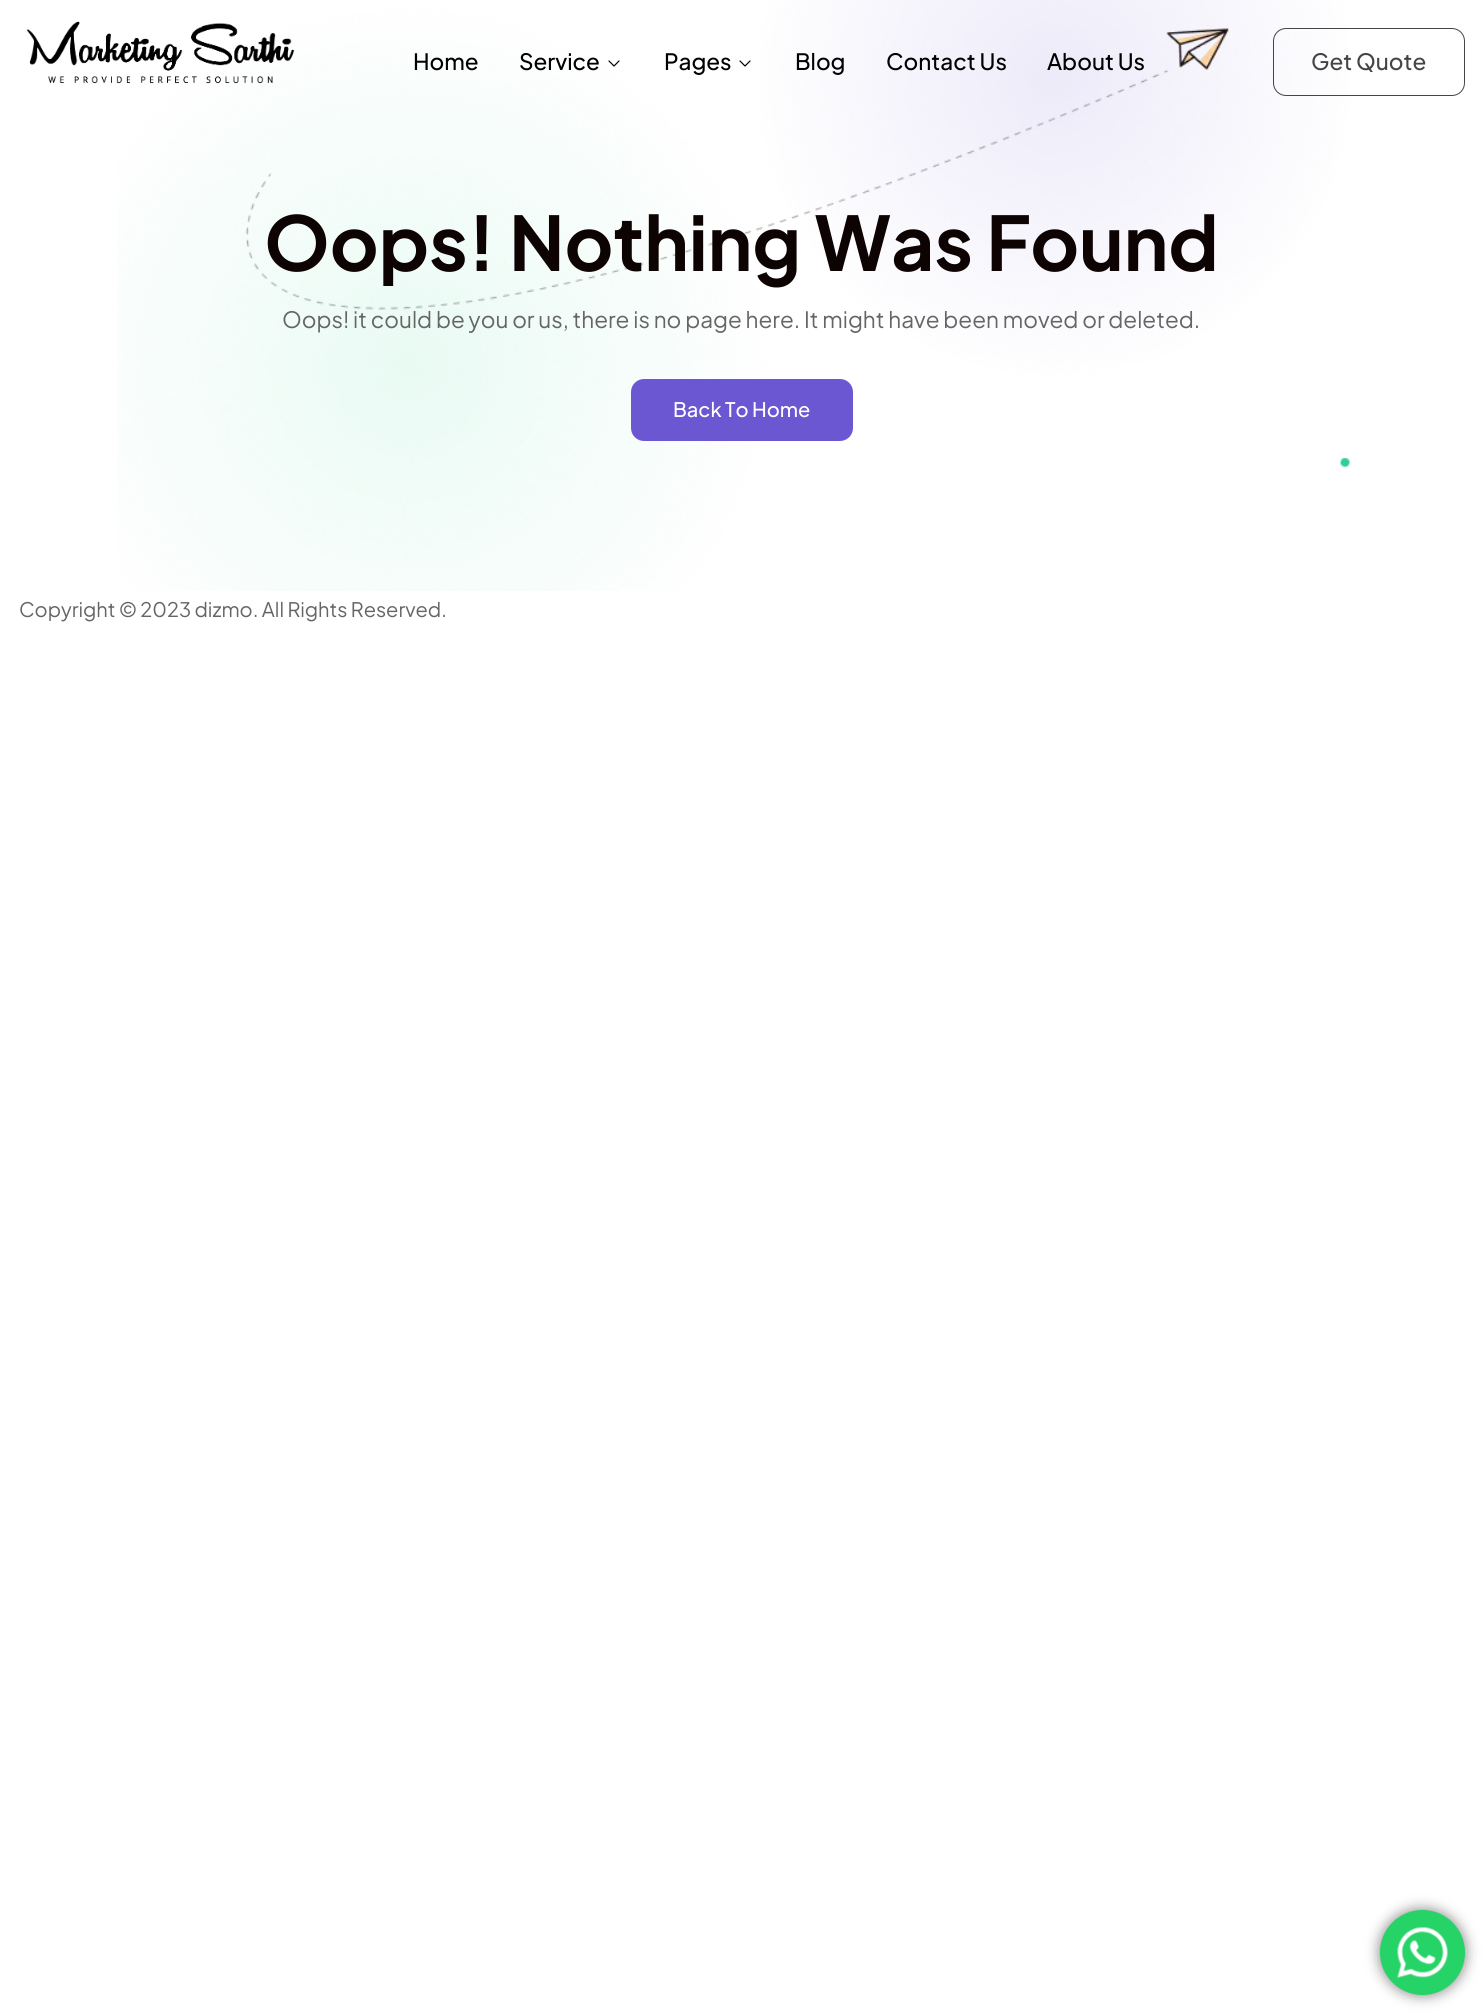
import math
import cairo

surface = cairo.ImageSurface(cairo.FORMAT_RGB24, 1483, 2013)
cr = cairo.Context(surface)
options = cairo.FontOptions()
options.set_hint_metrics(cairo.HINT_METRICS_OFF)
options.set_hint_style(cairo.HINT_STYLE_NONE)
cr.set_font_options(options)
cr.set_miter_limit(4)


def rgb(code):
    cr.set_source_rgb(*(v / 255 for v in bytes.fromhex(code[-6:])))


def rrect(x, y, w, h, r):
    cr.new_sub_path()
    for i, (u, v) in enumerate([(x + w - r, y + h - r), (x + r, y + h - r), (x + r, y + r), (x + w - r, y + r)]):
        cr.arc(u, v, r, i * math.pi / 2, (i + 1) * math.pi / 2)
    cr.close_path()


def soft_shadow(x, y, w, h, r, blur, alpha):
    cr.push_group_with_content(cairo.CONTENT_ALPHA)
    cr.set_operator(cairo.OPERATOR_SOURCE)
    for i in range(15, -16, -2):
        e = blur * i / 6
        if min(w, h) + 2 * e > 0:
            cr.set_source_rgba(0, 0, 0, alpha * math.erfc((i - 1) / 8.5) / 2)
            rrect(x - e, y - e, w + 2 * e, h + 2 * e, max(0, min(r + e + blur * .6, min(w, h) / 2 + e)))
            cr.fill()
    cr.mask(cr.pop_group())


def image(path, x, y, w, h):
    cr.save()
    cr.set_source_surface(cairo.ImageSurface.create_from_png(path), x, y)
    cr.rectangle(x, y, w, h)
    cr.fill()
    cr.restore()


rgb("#ffffff")
cr.paint()
image("img/2.png", 117, 0, 1233, 591)
image("img/1.png", 26, 21, 269, 63)
cr.new_path()
cr.move_to(609, 61)
cr.line_to(614, 66)
cr.line_to(619, 61)
rgb("#000000")
cr.set_line_width(1.2)
cr.set_line_cap(cairo.LINE_CAP_ROUND)
cr.set_line_join(cairo.LINE_JOIN_ROUND)
cr.stroke()
cr.new_path()
cr.move_to(740, 61)
cr.line_to(745, 66)
cr.line_to(750, 61)
cr.stroke()
rrect(1273.5, 28.5, 191, 67, 12.5)
rgb("#454545")
cr.set_line_width(1)
cr.set_line_cap(cairo.LINE_CAP_BUTT)
cr.set_line_join(cairo.LINE_JOIN_MITER)
cr.stroke()
rgb("#6c57d2")
rrect(631, 379, 222, 62, 13)
cr.fill()
rgb("#000000")
soft_shadow(1380, 1910, 85, 85, 42.5, 7, 0.5)
rgb("#25d366")
cr.arc(1422.5, 1952.5, 42.5, 0, 2 * math.pi)
cr.fill()
image("img/3.png", 1397, 1927, 51, 51)
cr.select_font_face("Plus Jakarta Sans Medium")
cr.set_font_size(22.5)
rgb("#000000")
for x, y, s in [
    (413, 70, "Home"),
    (519, 70, "Service"),
    (664, 70, "Pages"),
    (795, 70, "Blog"),
    (886, 70, "Contact Us"),
    (1047, 70, "About Us"),
]:
    cr.move_to(x, y)
    cr.show_text(s)
rgb("#454545")
cr.move_to(1311, 70)
cr.show_text("Get Quote")
cr.select_font_face("Plus Jakarta Sans", cairo.FONT_SLANT_NORMAL, cairo.FONT_WEIGHT_BOLD)
cr.set_font_size(75)
rgb("#0d0303")
cr.move_to(264, 271)
cr.show_text("Oops! Nothing Was Found")
cr.select_font_face("Plus Jakarta Sans")
cr.set_font_size(22.5)
rgb("#656565")
cr.move_to(282, 328)
cr.show_text("Oops! it could be you or us, there is no page here. It might have been moved or deleted.")
cr.select_font_face("Plus Jakarta Sans Medium")
cr.set_font_size(20)
rgb("#ffffff")
cr.move_to(673, 417)
cr.show_text("Back To Home")
cr.select_font_face("Plus Jakarta Sans")
rgb("#656565")
cr.move_to(19, 617)
cr.show_text("Copyright © 2023 dizmo. All Rights Reserved.")
surface.write_to_png("page.png")
